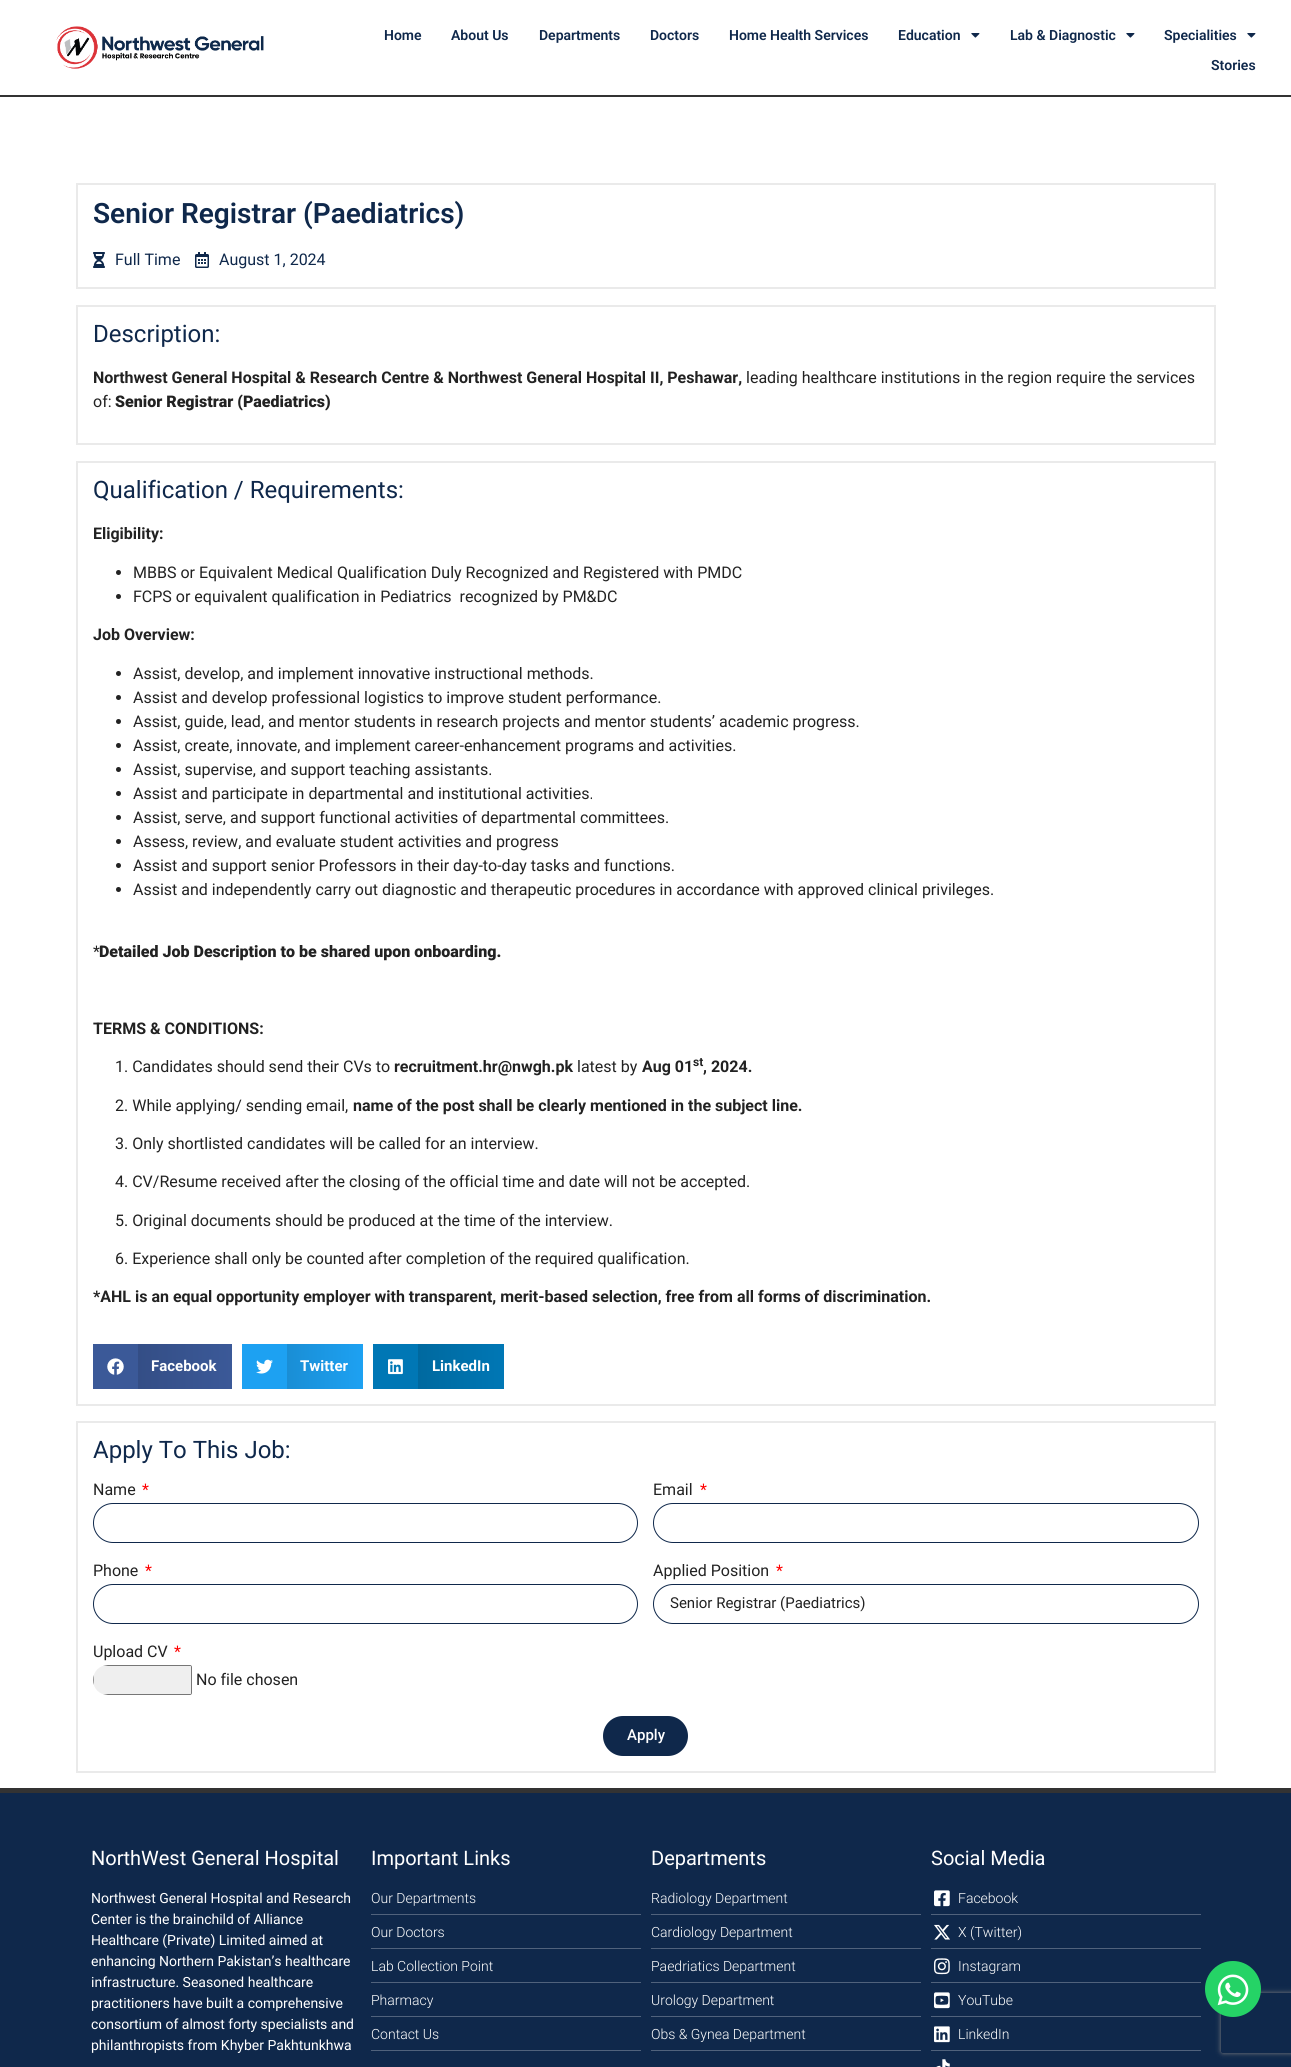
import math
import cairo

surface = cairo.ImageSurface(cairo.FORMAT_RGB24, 1291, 2067)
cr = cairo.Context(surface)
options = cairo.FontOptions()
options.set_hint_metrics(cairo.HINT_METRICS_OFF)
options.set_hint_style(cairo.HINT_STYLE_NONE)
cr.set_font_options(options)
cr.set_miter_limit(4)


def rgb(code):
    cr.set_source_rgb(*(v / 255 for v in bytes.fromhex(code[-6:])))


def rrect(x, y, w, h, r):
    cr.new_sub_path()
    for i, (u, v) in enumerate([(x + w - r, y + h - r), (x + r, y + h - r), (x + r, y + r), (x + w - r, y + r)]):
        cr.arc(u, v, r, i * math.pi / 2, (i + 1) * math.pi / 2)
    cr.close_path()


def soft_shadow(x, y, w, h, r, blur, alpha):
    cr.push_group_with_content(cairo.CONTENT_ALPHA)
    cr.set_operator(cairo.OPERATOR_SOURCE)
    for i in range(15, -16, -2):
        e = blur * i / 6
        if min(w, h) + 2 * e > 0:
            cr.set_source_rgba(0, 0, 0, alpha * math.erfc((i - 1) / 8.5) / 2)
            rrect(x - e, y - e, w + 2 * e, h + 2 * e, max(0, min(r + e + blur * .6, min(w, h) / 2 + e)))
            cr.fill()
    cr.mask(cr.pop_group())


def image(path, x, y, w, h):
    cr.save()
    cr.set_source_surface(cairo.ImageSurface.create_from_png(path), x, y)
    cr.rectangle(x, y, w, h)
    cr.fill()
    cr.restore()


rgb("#ffffff")
cr.paint()
rgb("#333333")
cr.rectangle(0, 95, 1291, 2)
cr.fill()
image("img/1.png", 56, 26, 208, 43)
image("img/2.png", 971, 33, 9, 5)
image("img/2.png", 1126, 33, 9, 5)
image("img/2.png", 1247, 33, 9, 5)
cr.rectangle(77, 184, 1138, 104)
rgb("#eaeaea")
cr.stroke()
image("img/3.png", 93, 252, 12, 16)
image("img/4.png", 195, 252, 14, 16)
cr.rectangle(77, 306, 1138, 138)
cr.stroke()
cr.rectangle(77, 462, 1138, 943)
cr.stroke()
rgb("#222222")
cr.arc(118.5, 572.5, 2.5, 0, 2 * math.pi)
cr.fill()
cr.arc(118.5, 596.5, 2.5, 0, 2 * math.pi)
cr.fill()
cr.arc(118.5, 673.5, 2.5, 0, 2 * math.pi)
cr.fill()
cr.arc(118.5, 697.5, 2.5, 0, 2 * math.pi)
cr.fill()
cr.arc(118.5, 721.5, 2.5, 0, 2 * math.pi)
cr.fill()
cr.arc(118.5, 745.5, 2.5, 0, 2 * math.pi)
cr.fill()
cr.arc(118.5, 769.5, 2.5, 0, 2 * math.pi)
cr.fill()
cr.arc(118.5, 793.5, 2.5, 0, 2 * math.pi)
cr.fill()
cr.arc(118.5, 817.5, 2.5, 0, 2 * math.pi)
cr.fill()
cr.arc(118.5, 841.5, 2.5, 0, 2 * math.pi)
cr.fill()
cr.arc(118.5, 865.5, 2.5, 0, 2 * math.pi)
cr.fill()
cr.arc(118.5, 889.5, 2.5, 0, 2 * math.pi)
cr.fill()
rgb("#3b5998")
cr.rectangle(93, 1344, 45, 45)
cr.fill()
image("img/5.png", 107, 1358, 17, 17)
gradient = cairo.LinearGradient(138, 1367, 232, 1367)
gradient.add_color_stop_rgba(0, 0.204, 0.306, 0.525, 1)
gradient.add_color_stop_rgba(1, 0.231, 0.349, 0.596, 1)
cr.set_source(gradient)
cr.rectangle(138, 1344, 94, 45)
cr.fill()
rgb("#1da1f2")
cr.rectangle(242, 1344, 45, 45)
cr.fill()
image("img/6.png", 256, 1359, 17, 15)
gradient = cairo.LinearGradient(287, 1367, 363, 1367)
gradient.add_color_stop_rgba(0, 0.102, 0.557, 0.835, 1)
gradient.add_color_stop_rgba(1, 0.114, 0.631, 0.949, 1)
cr.set_source(gradient)
cr.rectangle(287, 1344, 76, 45)
cr.fill()
rgb("#0077b5")
cr.rectangle(373, 1344, 45, 45)
cr.fill()
image("img/7.png", 388, 1359, 15, 16)
gradient = cairo.LinearGradient(418, 1367, 504, 1367)
gradient.add_color_stop_rgba(0, 0, 0.412, 0.624, 1)
gradient.add_color_stop_rgba(1, 0, 0.467, 0.71, 1)
cr.set_source(gradient)
cr.rectangle(418, 1344, 86, 45)
cr.fill()
cr.rectangle(77, 1422, 1138, 350)
rgb("#eaeaea")
cr.stroke()
rrect(93.5, 1503.5, 544, 39, 19.5)
rgb("#0f284b")
cr.set_line_width(1)
cr.stroke()
rrect(653.5, 1503.5, 545, 39, 19.5)
cr.stroke()
rrect(93.5, 1584.5, 544, 39, 19.5)
cr.stroke()
rrect(653.5, 1584.5, 545, 39, 19.5)
cr.stroke()
rgb("#efefef")
cr.new_path()
cr.move_to(108, 1665)
cr.line_to(190, 1665)
cr.curve_to(191, 1665, 192, 1666, 192, 1667)
cr.line_to(192, 1693)
cr.curve_to(192, 1694, 191, 1695, 190, 1695)
cr.line_to(108, 1695)
cr.curve_to(99.5, 1695, 93, 1688.5, 93, 1680)
cr.curve_to(93, 1671.5, 99.5, 1665, 108, 1665)
cr.close_path()
cr.fill()
rgb("#767676")
cr.set_fill_rule(cairo.FILL_RULE_EVEN_ODD)
cr.new_path()
cr.move_to(108, 1665)
cr.line_to(103, 1666)
cr.line_to(190, 1666)
cr.curve_to(191, 1666, 191, 1666, 191, 1667)
cr.line_to(191, 1693)
cr.curve_to(191, 1694, 191, 1694, 190, 1694)
cr.line_to(103, 1694)
cr.line_to(108, 1695)
cr.line_to(190, 1695)
cr.curve_to(191, 1695, 192, 1694, 192, 1693)
cr.line_to(192, 1667)
cr.curve_to(192, 1666, 191, 1665, 190, 1665)
cr.close_path()
cr.move_to(94, 1685)
cr.curve_to(93, 1682, 93, 1678, 94, 1675)
cr.close_path()
cr.fill()
rgb("#0f284b")
rrect(603, 1716, 85, 40, 20)
cr.fill()
cr.rectangle(0, 1793, 1291, 274)
cr.fill()
cr.save()
cr.new_path()
cr.move_to(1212, 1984)
cr.line_to(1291, 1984)
cr.line_to(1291, 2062)
cr.line_to(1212, 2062)
cr.close_path()
cr.move_to(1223, 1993)
cr.line_to(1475, 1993)
cr.curve_to(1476, 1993, 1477, 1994, 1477, 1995)
cr.line_to(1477, 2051)
cr.curve_to(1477, 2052, 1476, 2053, 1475, 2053)
cr.line_to(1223, 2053)
cr.curve_to(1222, 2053, 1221, 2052, 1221, 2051)
cr.line_to(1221, 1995)
cr.curve_to(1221, 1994, 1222, 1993, 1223, 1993)
cr.close_path()
cr.clip()
rgb("#808080")
soft_shadow(1221, 1993, 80, 60, 2, 2.5, 1)
cr.restore()
for x, y, w, h, color in [
    (0, 1788, 1291, 5, "#333333"),
    (371, 1914, 270, 1, "#50627c"),
    (371, 1948, 270, 1, "#50627c"),
    (371, 1982, 270, 1, "#50627c"),
    (371, 2016, 270, 1, "#50627c"),
    (371, 2050, 270, 1, "#50627c"),
    (651, 1914, 270, 1, "#50627c"),
    (651, 1948, 270, 1, "#50627c"),
    (651, 1982, 270, 1, "#50627c"),
    (651, 2016, 270, 1, "#50627c"),
    (651, 2050, 270, 1, "#50627c"),
]:
    rgb(color)
    cr.rectangle(x, y, w, h)
    cr.fill()
image("img/8.png", 934, 1890, 16, 17)
cr.rectangle(931, 1914, 270, 1)
cr.fill()
image("img/9.png", 934, 1924, 16, 16)
cr.rectangle(931, 1948, 270, 1)
cr.fill()
image("img/10.png", 934, 1958, 16, 17)
cr.rectangle(931, 1982, 270, 1)
cr.fill()
image("img/11.png", 934, 1992, 16, 17)
cr.rectangle(931, 2016, 270, 1)
cr.fill()
image("img/12.png", 934, 2026, 16, 17)
cr.rectangle(931, 2050, 270, 1)
cr.fill()
image("img/13.png", 936, 2059, 14, 8)
rgb("#25d366")
cr.arc(1233, 1989, 28, 0, 2 * math.pi)
cr.fill()
image("img/14.png", 1217, 1974, 32, 32)
cr.select_font_face("Roboto SemiBold")
cr.set_font_size(14)
rgb("#0f284b")
for x, y, s in [
    (384, 40, "Home"),
    (451, 40, "About Us"),
    (539, 40, "Departments"),
    (650, 40, "Doctors"),
    (729, 40, "Home Health Services"),
    (898, 40, "Education"),
    (1010, 40, "Lab & Diagnostic"),
    (1164, 40, "Specialities"),
    (1211, 70, "Stories"),
]:
    cr.move_to(x, y)
    cr.show_text(s)
cr.set_font_size(28)
cr.move_to(93, 223)
cr.show_text("Senior Registrar (Paediatrics)")
cr.select_font_face("Roboto")
cr.set_font_size(16)
cr.move_to(115, 265)
cr.show_text("Full Time")
cr.move_to(219, 265)
cr.show_text("August 1, 2024")
cr.set_font_size(24)
cr.move_to(93, 342)
cr.show_text("Description:")
cr.select_font_face("Roboto", cairo.FONT_SLANT_NORMAL, cairo.FONT_WEIGHT_BOLD)
cr.set_font_size(16)
rgb("#222222")
cr.move_to(93, 383)
cr.show_text("Northwest General Hospital & Research Centre & Northwest General Hospital II, Peshawar,")
cr.select_font_face("Roboto")
cr.move_to(746, 383)
cr.show_text("leading healthcare institutions in the region require the services")
cr.move_to(93, 407)
cr.show_text("of:")
cr.select_font_face("Roboto Black")
cr.move_to(115, 407)
cr.show_text("Senior Registrar (Paediatrics)")
cr.select_font_face("Roboto")
cr.set_font_size(24)
rgb("#0f284b")
cr.move_to(93, 498)
cr.show_text("Qualification / Requirements:")
cr.select_font_face("Roboto", cairo.FONT_SLANT_NORMAL, cairo.FONT_WEIGHT_BOLD)
cr.set_font_size(16)
rgb("#222222")
cr.move_to(93, 539)
cr.show_text("Eligibility:")
cr.select_font_face("Roboto")
cr.move_to(133, 578)
cr.show_text("MBBS or Equivalent Medical Qualification Duly Recognized and Registered with PMDC")
cr.move_to(133, 602)
cr.show_text("FCPS or equivalent qualification in Pediatrics  recognized by PM&DC")
cr.select_font_face("Roboto", cairo.FONT_SLANT_NORMAL, cairo.FONT_WEIGHT_BOLD)
cr.move_to(93, 640)
cr.show_text("Job Overview:")
cr.select_font_face("Roboto")
for x, y, s in [
    (133, 679, "Assist, develop, and implement innovative instructional methods."),
    (133, 703, "Assist and develop professional logistics to improve student performance."),
    (133, 727, "Assist, guide, lead, and mentor students in research projects and mentor students’ academic progress."),
    (133, 751, "Assist, create, innovate, and implement career-enhancement programs and activities."),
    (133, 775, "Assist, supervise, and support teaching assistants."),
    (133, 799, "Assist and participate in departmental and institutional activities."),
    (133, 823, "Assist, serve, and support functional activities of departmental committees."),
    (133, 847, "Assess, review, and evaluate student activities and progress"),
    (133, 871, "Assist and support senior Professors in their day-to-day tasks and functions."),
    (133, 895, "Assist and independently carry out diagnostic and therapeutic procedures in accordance with approved clinical privileges."),
    (93, 957, "*"),
]:
    cr.move_to(x, y)
    cr.show_text(s)
cr.select_font_face("Roboto Black")
cr.move_to(99, 957)
cr.show_text("Detailed Job Description to be shared upon onboarding.")
cr.select_font_face("Roboto", cairo.FONT_SLANT_NORMAL, cairo.FONT_WEIGHT_BOLD)
cr.move_to(93, 1034)
cr.show_text("TERMS & CONDITIONS:")
cr.select_font_face("Roboto")
cr.move_to(115, 1072)
cr.show_text("1. Candidates should send their CVs to")
cr.select_font_face("Roboto", cairo.FONT_SLANT_NORMAL, cairo.FONT_WEIGHT_BOLD)
cr.move_to(394, 1072)
cr.show_text("recruitment.hr@nwgh.pk")
cr.select_font_face("Roboto")
cr.move_to(577, 1072)
cr.show_text("latest by")
cr.select_font_face("Roboto", cairo.FONT_SLANT_NORMAL, cairo.FONT_WEIGHT_BOLD)
cr.move_to(642, 1072)
cr.show_text("Aug 01")
cr.set_font_size(12)
cr.move_to(693, 1066)
cr.show_text("st")
cr.set_font_size(16)
cr.move_to(703, 1072)
cr.show_text(", 2024.")
cr.select_font_face("Roboto")
cr.move_to(115, 1111)
cr.show_text("2. While applying/ sending email,")
cr.select_font_face("Roboto", cairo.FONT_SLANT_NORMAL, cairo.FONT_WEIGHT_BOLD)
cr.move_to(353, 1111)
cr.show_text("name of the post shall be clearly mentioned in the subject line.")
cr.select_font_face("Roboto")
for x, y, s in [
    (115, 1149, "3. Only shortlisted candidates will be called for an interview."),
    (115, 1187, "4. CV/Resume received after the closing of the official time and date will not be accepted."),
    (115, 1226, "5. Original documents should be produced at the time of the interview."),
    (115, 1264, "6. Experience shall only be counted after completion of the required qualification."),
]:
    cr.move_to(x, y)
    cr.show_text(s)
cr.select_font_face("Roboto", cairo.FONT_SLANT_NORMAL, cairo.FONT_WEIGHT_BOLD)
cr.move_to(93, 1302)
cr.show_text("*AHL is an equal opportunity employer with transparent, merit-based selection, free from all forms of discrimination.")
cr.set_font_size(15)
rgb("#ffffff")
for x, y, s in [
    (151, 1371, "Facebook"),
    (300, 1371, "Twitter"),
    (432, 1371, "LinkedIn"),
]:
    cr.move_to(x, y)
    cr.show_text(s)
cr.select_font_face("Roboto")
cr.set_font_size(24)
rgb("#0f284b")
cr.move_to(93, 1458)
cr.show_text("Apply To This Job:")
cr.set_font_size(16)
rgb("#222222")
cr.move_to(93, 1495)
cr.show_text("Name")
rgb("#ff0000")
cr.move_to(142, 1495)
cr.show_text("*")
rgb("#222222")
cr.move_to(653, 1495)
cr.show_text("Email")
rgb("#ff0000")
cr.move_to(700, 1495)
cr.show_text("*")
rgb("#222222")
cr.move_to(93, 1576)
cr.show_text("Phone")
rgb("#ff0000")
cr.move_to(145, 1576)
cr.show_text("*")
rgb("#222222")
cr.move_to(653, 1576)
cr.show_text("Applied Position")
rgb("#ff0000")
cr.move_to(776, 1576)
cr.show_text("*")
cr.set_font_size(15)
rgb("#222222")
cr.move_to(670, 1608)
cr.show_text("Senior Registrar (Paediatrics)")
cr.set_font_size(16)
cr.move_to(93, 1657)
cr.show_text("Upload CV")
rgb("#ff0000")
cr.move_to(174, 1657)
cr.show_text("*")
rgb("#222222")
cr.move_to(196, 1685)
cr.show_text("No file chosen")
cr.select_font_face("Roboto Medium")
cr.set_font_size(15)
rgb("#ffffff")
cr.move_to(627, 1740)
cr.show_text("Apply")
cr.select_font_face("Roboto")
cr.set_font_size(20)
cr.move_to(91, 1865)
cr.show_text("NorthWest General Hospital")
cr.set_font_size(14)
for x, y, s in [
    (91, 1903, "Northwest General Hospital and Research"),
    (91, 1924, "Center is the brainchild of Alliance"),
    (91, 1945, "Healthcare (Private) Limited aimed at"),
    (91, 1966, "enhancing Northern Pakistan’s healthcare"),
    (91, 1987, "infrastructure. Seasoned healthcare"),
    (91, 2008, "practitioners have built a comprehensive"),
    (91, 2029, "consortium of almost forty specialists and"),
    (91, 2050, "philanthropists from Khyber Pakhtunkhwa"),
]:
    cr.move_to(x, y)
    cr.show_text(s)
cr.set_font_size(20)
cr.move_to(371, 1865)
cr.show_text("Important Links")
cr.select_font_face("Roboto Light")
cr.set_font_size(14)
for x, y, s in [
    (371, 1903, "Our Departments"),
    (371, 1937, "Our Doctors"),
    (371, 1971, "Lab Collection Point"),
    (371, 2005, "Pharmacy"),
    (371, 2039, "Contact Us"),
]:
    cr.move_to(x, y)
    cr.show_text(s)
cr.select_font_face("Roboto")
cr.set_font_size(20)
cr.move_to(651, 1865)
cr.show_text("Departments")
cr.select_font_face("Roboto Light")
cr.set_font_size(14)
for x, y, s in [
    (651, 1903, "Radiology Department"),
    (651, 1937, "Cardiology Department"),
    (651, 1971, "Paedriatics Department"),
    (651, 2005, "Urology Department"),
    (651, 2039, "Obs & Gynea Department"),
]:
    cr.move_to(x, y)
    cr.show_text(s)
cr.select_font_face("Roboto")
cr.set_font_size(20)
cr.move_to(931, 1865)
cr.show_text("Social Media")
cr.select_font_face("Roboto Light")
cr.set_font_size(14)
for x, y, s in [
    (958, 1903, "Facebook"),
    (958, 1937, "X (Twitter)"),
    (958, 1971, "Instagram"),
    (958, 2005, "YouTube"),
    (958, 2039, "LinkedIn"),
]:
    cr.move_to(x, y)
    cr.show_text(s)
surface.write_to_png("page.png")
